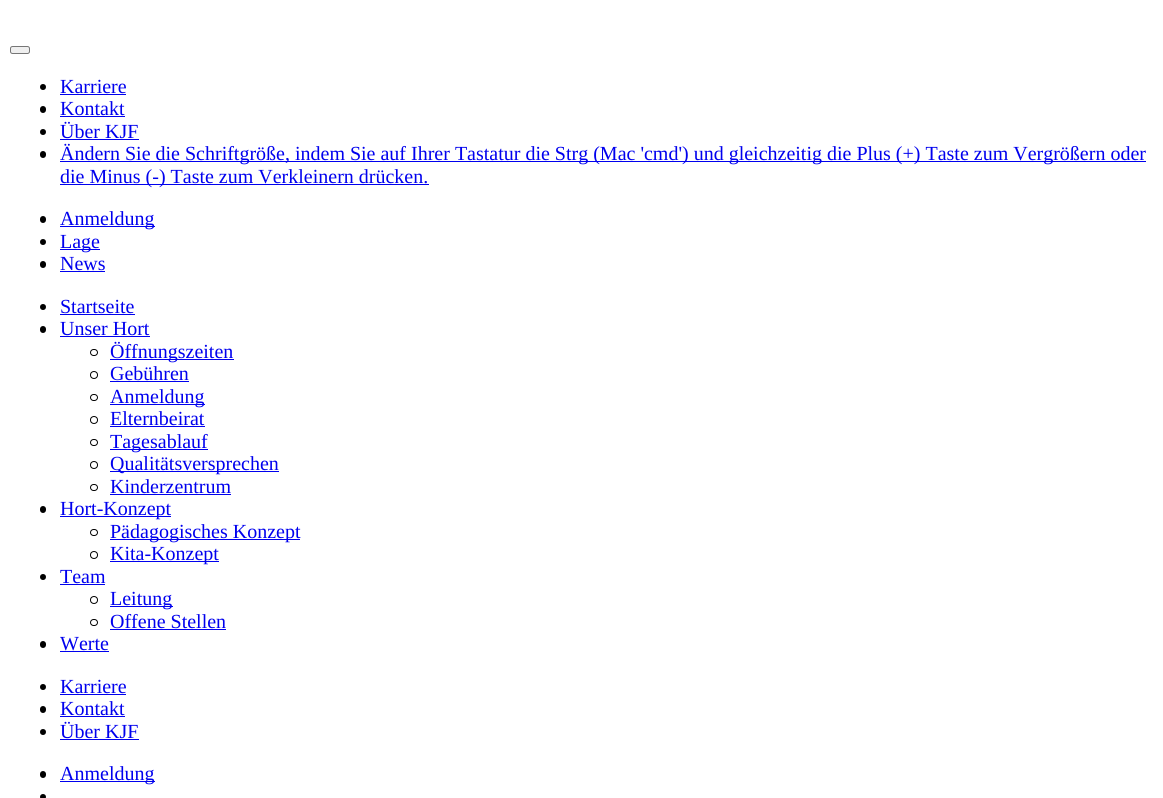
import math
import cairo

surface = cairo.ImageSurface(cairo.FORMAT_RGB24, 1163, 798)
cr = cairo.Context(surface)
options = cairo.FontOptions()
options.set_hint_metrics(cairo.HINT_METRICS_OFF)
options.set_hint_style(cairo.HINT_STYLE_NONE)
cr.set_font_options(options)
cr.set_miter_limit(4)


def rgb(code):
    cr.set_source_rgb(*(v / 255 for v in bytes.fromhex(code[-6:])))


def rrect(x, y, w, h, r):
    cr.new_sub_path()
    for i, (u, v) in enumerate([(x + w - r, y + h - r), (x + r, y + h - r), (x + r, y + r), (x + w - r, y + r)]):
        cr.arc(u, v, r, i * math.pi / 2, (i + 1) * math.pi / 2)
    cr.close_path()


rgb("#ffffff")
cr.paint()
rgb("#efefef")
rrect(10.5, 46.5, 19, 7, 2)
cr.fill_preserve()
rgb("#767676")
cr.set_line_width(1)
cr.stroke()
rgb("#000000")
cr.arc(43, 87, 3, 0, 2 * math.pi)
cr.fill()
rgb("#0000ee")
cr.rectangle(60, 94, 66, 1)
cr.fill()
rgb("#000000")
rrect(40, 106, 6, 7, 3)
cr.fill()
rgb("#0000ee")
cr.rectangle(60, 116, 65, 1)
cr.fill()
rgb("#000000")
cr.arc(43, 132, 3, 0, 2 * math.pi)
cr.fill()
rgb("#0000ee")
cr.rectangle(60, 139, 79, 1)
cr.fill()
rgb("#000000")
rrect(40, 151, 6, 7, 3)
cr.fill()
rgb("#0000ee")
cr.rectangle(60, 161, 1086, 1)
cr.fill()
cr.rectangle(60, 184, 369, 1)
cr.fill()
rgb("#000000")
rrect(40, 216, 6, 7, 3)
cr.fill()
rgb("#0000ee")
cr.rectangle(60, 226, 95, 1)
cr.fill()
rgb("#000000")
cr.arc(43, 242, 3, 0, 2 * math.pi)
cr.fill()
rgb("#0000ee")
cr.rectangle(60, 249, 40, 1)
cr.fill()
rgb("#000000")
rrect(40, 261, 6, 7, 3)
cr.fill()
rgb("#0000ee")
cr.rectangle(60, 271, 45, 1)
cr.fill()
rgb("#000000")
cr.arc(43, 307, 3, 0, 2 * math.pi)
cr.fill()
rgb("#0000ee")
cr.rectangle(60, 314, 75, 1)
cr.fill()
rgb("#000000")
rrect(40, 326, 6, 7, 3)
cr.fill()
rgb("#0000ee")
cr.rectangle(60, 336, 90, 1)
cr.fill()
rrect(90.5, 349.5, 7, 6, 3)
rgb("#000000")
cr.stroke()
rgb("#0000ee")
cr.rectangle(110, 359, 124, 1)
cr.fill()
cr.arc(94, 375, 3.5, 0, 2 * math.pi)
rgb("#000000")
cr.stroke()
rgb("#0000ee")
cr.rectangle(110, 381, 79, 1)
cr.fill()
rrect(90.5, 394.5, 7, 6, 3)
rgb("#000000")
cr.stroke()
rgb("#0000ee")
cr.rectangle(110, 404, 95, 1)
cr.fill()
cr.arc(94, 420, 3.5, 0, 2 * math.pi)
rgb("#000000")
cr.stroke()
rgb("#0000ee")
cr.rectangle(110, 426, 95, 1)
cr.fill()
rrect(90.5, 439.5, 7, 6, 3)
rgb("#000000")
cr.stroke()
rgb("#0000ee")
cr.rectangle(110, 449, 98, 1)
cr.fill()
cr.arc(94, 465, 3.5, 0, 2 * math.pi)
rgb("#000000")
cr.stroke()
rgb("#0000ee")
cr.rectangle(110, 471, 169, 1)
cr.fill()
rrect(90.5, 484.5, 7, 6, 3)
rgb("#000000")
cr.stroke()
rgb("#0000ee")
cr.rectangle(110, 494, 121, 1)
cr.fill()
rgb("#000000")
rrect(40, 506, 6, 7, 3)
cr.fill()
rgb("#0000ee")
cr.rectangle(60, 516, 111, 1)
cr.fill()
rrect(90.5, 529.5, 7, 6, 3)
rgb("#000000")
cr.stroke()
rgb("#0000ee")
cr.rectangle(110, 539, 190, 1)
cr.fill()
cr.arc(94, 555, 3.5, 0, 2 * math.pi)
rgb("#000000")
cr.stroke()
rgb("#0000ee")
cr.rectangle(110, 561, 109, 1)
cr.fill()
rgb("#000000")
cr.arc(43, 577, 3, 0, 2 * math.pi)
cr.fill()
rgb("#0000ee")
cr.rectangle(60, 584, 45, 1)
cr.fill()
cr.arc(94, 600, 3.5, 0, 2 * math.pi)
rgb("#000000")
cr.stroke()
rgb("#0000ee")
cr.rectangle(110, 606, 63, 1)
cr.fill()
rrect(90.5, 619.5, 7, 6, 3)
rgb("#000000")
cr.stroke()
rgb("#0000ee")
cr.rectangle(110, 629, 116, 1)
cr.fill()
rgb("#000000")
rrect(40, 641, 6, 7, 3)
cr.fill()
rgb("#0000ee")
cr.rectangle(60, 651, 49, 1)
cr.fill()
rgb("#000000")
cr.arc(43, 687, 3, 0, 2 * math.pi)
cr.fill()
rgb("#0000ee")
cr.rectangle(60, 694, 66, 1)
cr.fill()
rgb("#000000")
rrect(40, 706, 6, 7, 3)
cr.fill()
rgb("#0000ee")
cr.rectangle(60, 716, 65, 1)
cr.fill()
rgb("#000000")
cr.arc(43, 732, 3, 0, 2 * math.pi)
cr.fill()
rgb("#0000ee")
cr.rectangle(60, 739, 79, 1)
cr.fill()
rgb("#000000")
rrect(40, 771, 6, 7, 3)
cr.fill()
rgb("#0000ee")
cr.rectangle(60, 781, 95, 1)
cr.fill()
rgb("#000000")
cr.arc(43, 797, 3, 0, 2 * math.pi)
cr.fill()
cr.select_font_face("Liberation Serif")
cr.set_font_size(20)
rgb("#0000ee")
for x, y, s in [
    (60, 93, "Karriere"),
    (60, 115, "Kontakt"),
    (60, 138, "Über KJF"),
    (60, 160, "Ändern Sie die Schriftgröße, indem Sie auf Ihrer Tastatur die Strg (Mac 'cmd') und gleichzeitig die Plus (+) Taste zum Vergrößern oder"),
    (60, 183, "die Minus (-) Taste zum Verkleinern drücken."),
    (60, 225, "Anmeldung"),
    (60, 248, "Lage"),
    (60, 270, "News"),
    (60, 313, "Startseite"),
    (60, 335, "Unser Hort"),
    (110, 358, "Öffnungszeiten"),
    (110, 380, "Gebühren"),
    (110, 403, "Anmeldung"),
    (110, 425, "Elternbeirat"),
    (110, 448, "Tagesablauf"),
    (110, 470, "Qualitätsversprechen"),
    (110, 493, "Kinderzentrum"),
    (60, 515, "Hort-Konzept"),
    (110, 538, "Pädagogisches Konzept"),
    (110, 560, "Kita-Konzept"),
    (60, 583, "Team"),
    (110, 605, "Leitung"),
    (110, 628, "Offene Stellen"),
    (60, 650, "Werte"),
    (60, 693, "Karriere"),
    (60, 715, "Kontakt"),
    (60, 738, "Über KJF"),
    (60, 780, "Anmeldung"),
]:
    cr.move_to(x, y)
    cr.show_text(s)
surface.write_to_png("page.png")
